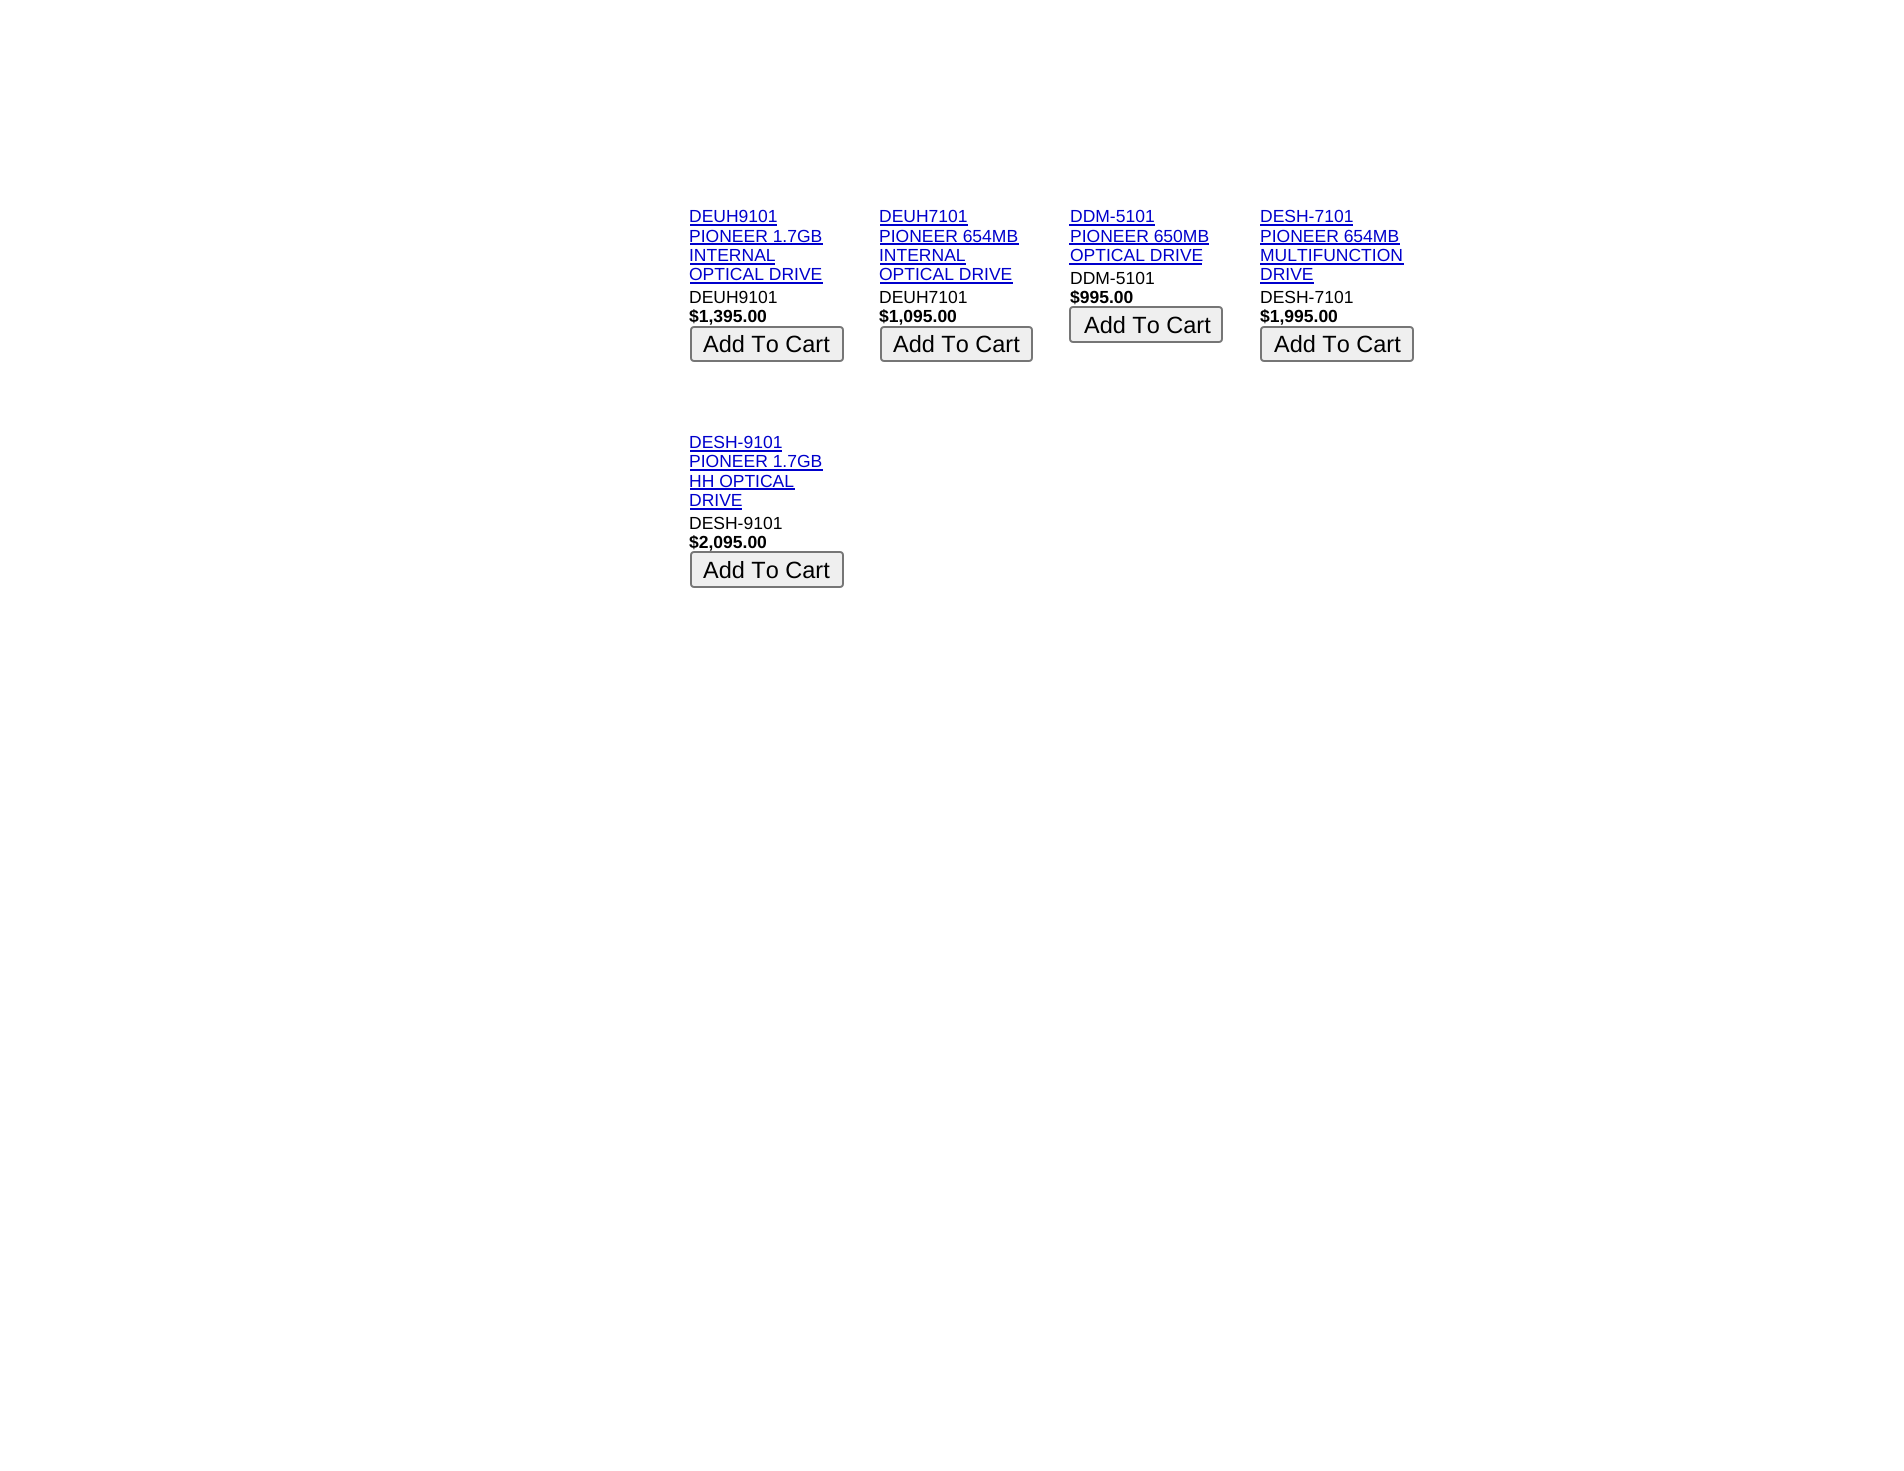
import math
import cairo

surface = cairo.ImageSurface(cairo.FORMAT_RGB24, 1904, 1471)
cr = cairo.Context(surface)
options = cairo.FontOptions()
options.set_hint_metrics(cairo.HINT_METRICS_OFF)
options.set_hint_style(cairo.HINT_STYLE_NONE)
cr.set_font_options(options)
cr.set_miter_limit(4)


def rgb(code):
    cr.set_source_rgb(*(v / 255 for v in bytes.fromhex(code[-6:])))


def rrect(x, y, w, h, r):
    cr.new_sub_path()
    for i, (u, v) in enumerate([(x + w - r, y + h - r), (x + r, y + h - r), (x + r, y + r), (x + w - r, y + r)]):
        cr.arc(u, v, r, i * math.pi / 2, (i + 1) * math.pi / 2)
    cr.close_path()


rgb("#ffffff")
cr.paint()
for x, y, w, h, color in [
    (690, 224, 87, 2, "#0000cc"),
    (690, 243, 133, 2, "#0000cc"),
    (690, 263, 85, 2, "#0000cc"),
    (690, 282, 133, 2, "#0000cc"),
]:
    rgb(color)
    cr.rectangle(x, y, w, h)
    cr.fill()
rgb("#efefef")
rrect(691, 327, 152, 34, 3)
cr.fill_preserve()
rgb("#767676")
cr.stroke()
for x, y, w, h, color in [
    (880, 224, 88, 2, "#0000cc"),
    (880, 243, 139, 2, "#0000cc"),
    (880, 263, 86, 2, "#0000cc"),
    (880, 282, 133, 2, "#0000cc"),
]:
    rgb(color)
    cr.rectangle(x, y, w, h)
    cr.fill()
rgb("#efefef")
rrect(881, 327, 151, 34, 3)
cr.fill_preserve()
rgb("#767676")
cr.stroke()
for x, y, w, h, color in [
    (1069, 224, 86, 2, "#0000cc"),
    (1069, 243, 140, 2, "#0000cc"),
    (1069, 263, 133, 2, "#0000cc"),
]:
    rgb(color)
    cr.rectangle(x, y, w, h)
    cr.fill()
rgb("#efefef")
rrect(1070, 307, 152, 35, 3)
cr.fill_preserve()
rgb("#767676")
cr.stroke()
for x, y, w, h, color in [
    (1260, 224, 93, 2, "#0000cc"),
    (1260, 243, 140, 2, "#0000cc"),
    (1260, 263, 144, 2, "#0000cc"),
    (1260, 282, 54, 2, "#0000cc"),
]:
    rgb(color)
    cr.rectangle(x, y, w, h)
    cr.fill()
rgb("#efefef")
rrect(1261, 327, 152, 34, 3)
cr.fill_preserve()
rgb("#767676")
cr.stroke()
for x, y, w, h, color in [
    (690, 450, 92, 2, "#0000cc"),
    (690, 469, 133, 2, "#0000cc"),
    (690, 488, 105, 2, "#0000cc"),
    (690, 508, 52, 2, "#0000cc"),
]:
    rgb(color)
    cr.rectangle(x, y, w, h)
    cr.fill()
rgb("#efefef")
rrect(691, 552, 152, 35, 3)
cr.fill_preserve()
rgb("#767676")
cr.stroke()
cr.select_font_face("Liberation Sans")
cr.set_font_size(17.5)
rgb("#0000cc")
for x, y, s in [
    (689, 222, "DEUH9101"),
    (689, 242, "PIONEER 1.7GB"),
    (689, 261, "INTERNAL"),
    (689, 280, "OPTICAL DRIVE"),
]:
    cr.move_to(x, y)
    cr.show_text(s)
rgb("#000000")
cr.move_to(689, 303)
cr.show_text("DEUH9101")
cr.select_font_face("Liberation Sans", cairo.FONT_SLANT_NORMAL, cairo.FONT_WEIGHT_BOLD)
cr.move_to(689, 322)
cr.show_text("$1,395.00")
cr.select_font_face("Liberation Sans")
cr.set_font_size(23.5)
cr.move_to(703, 352)
cr.show_text("Add To Cart")
cr.set_font_size(17.5)
rgb("#0000cc")
for x, y, s in [
    (879, 222, "DEUH7101"),
    (879, 242, "PIONEER 654MB"),
    (879, 261, "INTERNAL"),
    (879, 280, "OPTICAL DRIVE"),
]:
    cr.move_to(x, y)
    cr.show_text(s)
rgb("#000000")
cr.move_to(879, 303)
cr.show_text("DEUH7101")
cr.select_font_face("Liberation Sans", cairo.FONT_SLANT_NORMAL, cairo.FONT_WEIGHT_BOLD)
cr.move_to(879, 322)
cr.show_text("$1,095.00")
cr.select_font_face("Liberation Sans")
cr.set_font_size(23.5)
cr.move_to(893, 352)
cr.show_text("Add To Cart")
cr.set_font_size(17.5)
rgb("#0000cc")
for x, y, s in [
    (1070, 222, "DDM-5101"),
    (1070, 242, "PIONEER 650MB"),
    (1070, 261, "OPTICAL DRIVE"),
]:
    cr.move_to(x, y)
    cr.show_text(s)
rgb("#000000")
cr.move_to(1070, 284)
cr.show_text("DDM-5101")
cr.select_font_face("Liberation Sans", cairo.FONT_SLANT_NORMAL, cairo.FONT_WEIGHT_BOLD)
cr.move_to(1070, 303)
cr.show_text("$995.00")
cr.select_font_face("Liberation Sans")
cr.set_font_size(23.5)
cr.move_to(1084, 333)
cr.show_text("Add To Cart")
cr.set_font_size(17.5)
rgb("#0000cc")
for x, y, s in [
    (1260, 222, "DESH-7101"),
    (1260, 242, "PIONEER 654MB"),
    (1260, 261, "MULTIFUNCTION"),
    (1260, 280, "DRIVE"),
]:
    cr.move_to(x, y)
    cr.show_text(s)
rgb("#000000")
cr.move_to(1260, 303)
cr.show_text("DESH-7101")
cr.select_font_face("Liberation Sans", cairo.FONT_SLANT_NORMAL, cairo.FONT_WEIGHT_BOLD)
cr.move_to(1260, 322)
cr.show_text("$1,995.00")
cr.select_font_face("Liberation Sans")
cr.set_font_size(23.5)
cr.move_to(1274, 352)
cr.show_text("Add To Cart")
cr.set_font_size(17.5)
rgb("#0000cc")
for x, y, s in [
    (689, 448, "DESH-9101"),
    (689, 467, "PIONEER 1.7GB"),
    (689, 487, "HH OPTICAL"),
    (689, 506, "DRIVE"),
]:
    cr.move_to(x, y)
    cr.show_text(s)
rgb("#000000")
cr.move_to(689, 529)
cr.show_text("DESH-9101")
cr.select_font_face("Liberation Sans", cairo.FONT_SLANT_NORMAL, cairo.FONT_WEIGHT_BOLD)
cr.move_to(689, 548)
cr.show_text("$2,095.00")
cr.select_font_face("Liberation Sans")
cr.set_font_size(23.5)
cr.move_to(703, 578)
cr.show_text("Add To Cart")
surface.write_to_png("page.png")
